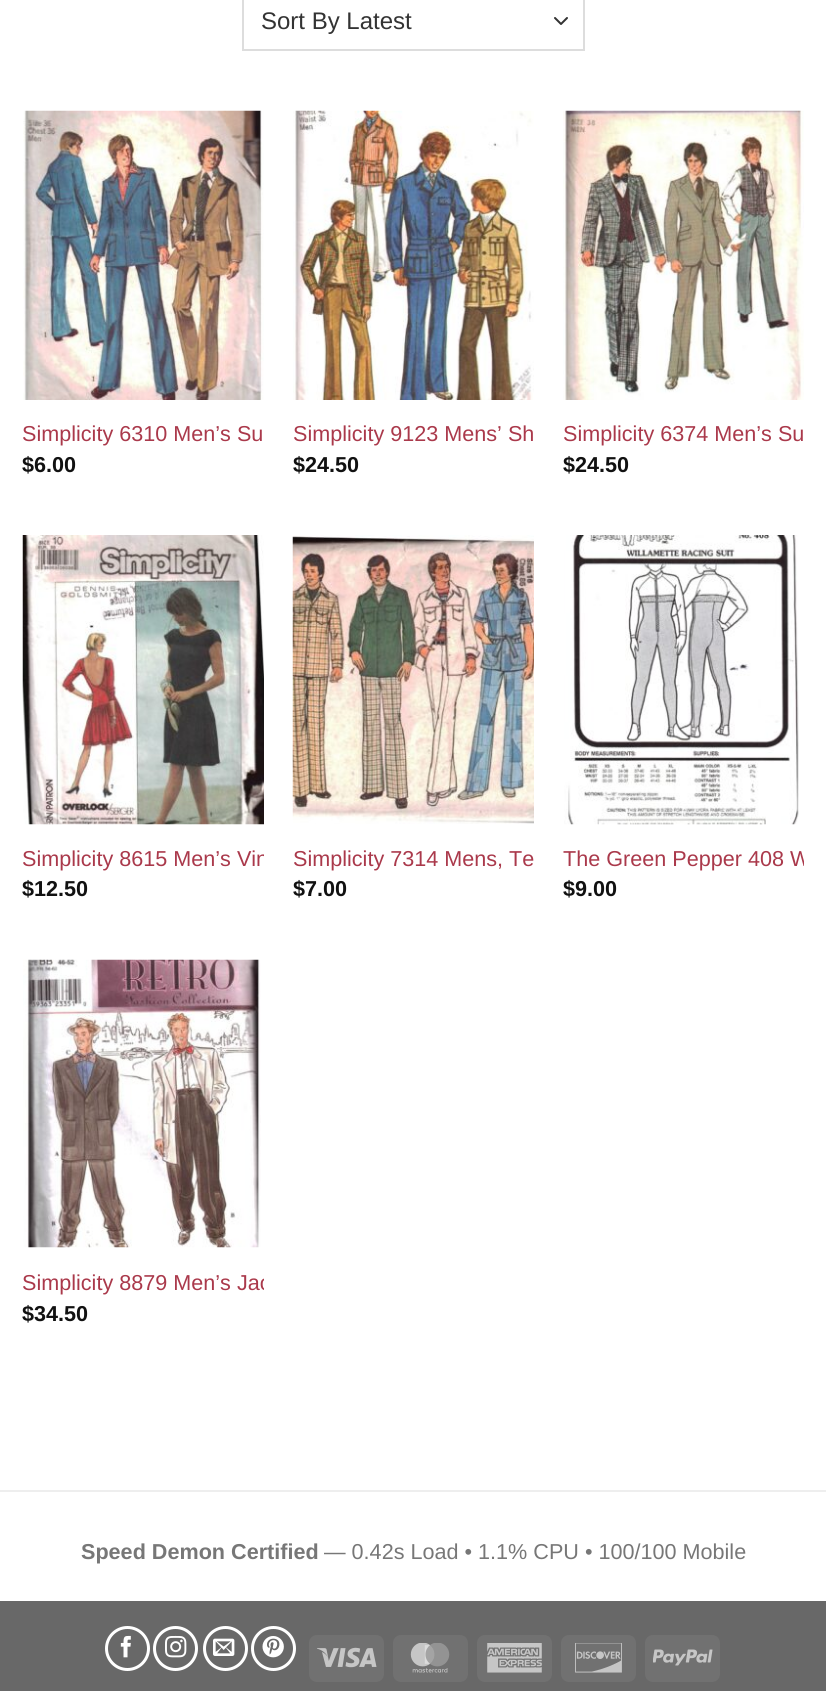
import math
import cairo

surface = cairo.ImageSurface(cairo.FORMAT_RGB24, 826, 1691)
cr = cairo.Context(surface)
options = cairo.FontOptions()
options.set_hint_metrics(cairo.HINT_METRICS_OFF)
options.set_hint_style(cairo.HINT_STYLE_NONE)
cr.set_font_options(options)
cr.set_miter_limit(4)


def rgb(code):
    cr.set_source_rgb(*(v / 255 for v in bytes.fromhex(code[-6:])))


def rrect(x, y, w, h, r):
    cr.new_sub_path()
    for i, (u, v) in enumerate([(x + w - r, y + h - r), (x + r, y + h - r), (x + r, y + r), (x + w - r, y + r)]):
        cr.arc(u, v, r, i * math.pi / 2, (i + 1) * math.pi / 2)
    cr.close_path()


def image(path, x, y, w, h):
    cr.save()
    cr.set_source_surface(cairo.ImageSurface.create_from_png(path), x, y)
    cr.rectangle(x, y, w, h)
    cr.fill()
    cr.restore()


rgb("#ffffff")
cr.paint()
cr.new_path()
cr.move_to(555, 18)
cr.line_to(561, 24)
cr.line_to(567, 18)
rgb("#333333")
cr.set_line_cap(cairo.LINE_CAP_ROUND)
cr.set_line_join(cairo.LINE_JOIN_ROUND)
cr.stroke()
cr.rectangle(243, -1, 341, 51)
rgb("#dddddd")
cr.set_line_cap(cairo.LINE_CAP_BUTT)
cr.set_line_join(cairo.LINE_JOIN_MITER)
cr.stroke()
image("img/1.png", 23, 110, 241, 290)
image("img/2.png", 293, 110, 241, 290)
image("img/3.png", 563, 110, 241, 290)
image("img/4.png", 22, 535, 242, 290)
image("img/5.png", 292, 535, 242, 289)
image("img/6.png", 564, 535, 235, 290)
image("img/7.png", 23, 959, 238, 289)
rgb("#eeeeee")
cr.rectangle(0, 1490, 826, 2)
cr.fill()
rgb("#686868")
cr.rectangle(0, 1601, 826, 90)
cr.fill()
cr.arc(127.5, 1648.5, 21, 0, 2 * math.pi)
rgb("#ffffff")
cr.set_line_width(3)
cr.stroke()
image("img/8.png", 120, 1635, 11, 23)
cr.arc(175.5, 1648.5, 21, 0, 2 * math.pi)
cr.stroke()
image("img/9.png", 165, 1635, 22, 23)
cr.arc(225.5, 1648.5, 21, 0, 2 * math.pi)
cr.stroke()
image("img/10.png", 213, 1638, 22, 18)
cr.arc(273.5, 1648.5, 21, 0, 2 * math.pi)
cr.stroke()
image("img/11.png", 262, 1636, 22, 22)
rgb("#717171")
rrect(309, 1635, 75, 47, 8)
cr.fill()
image("img/12.png", 317, 1647, 60, 21)
rrect(393, 1635, 75, 47, 8)
cr.fill()
image("img/13.png", 410, 1643, 40, 30)
rrect(477, 1635, 75, 47, 8)
cr.fill()
image("img/14.png", 487, 1643, 55, 30)
rrect(561, 1635, 75, 47, 8)
cr.fill()
image("img/15.png", 575, 1643, 47, 30)
rrect(645, 1635, 75, 47, 8)
cr.fill()
image("img/16.png", 653, 1649, 60, 17)
cr.select_font_face("Liberation Sans")
cr.set_font_size(24)
rgb("#333333")
cr.move_to(261, 29)
cr.show_text("Sort By Latest")
cr.set_font_size(21.6)
rgb("#aa394b")
cr.move_to(22, 441)
cr.show_text("Simplicity 6310 Men’s Su")
cr.select_font_face("Liberation Sans", cairo.FONT_SLANT_NORMAL, cairo.FONT_WEIGHT_BOLD)
rgb("#111111")
cr.move_to(22, 472)
cr.show_text("$6.00")
cr.select_font_face("Liberation Sans")
rgb("#aa394b")
cr.move_to(293, 441)
cr.show_text("Simplicity 9123 Mens’ Sh")
cr.select_font_face("Liberation Sans", cairo.FONT_SLANT_NORMAL, cairo.FONT_WEIGHT_BOLD)
rgb("#111111")
cr.move_to(293, 472)
cr.show_text("$24.50")
cr.select_font_face("Liberation Sans")
rgb("#aa394b")
cr.move_to(563, 441)
cr.show_text("Simplicity 6374 Men’s Su")
cr.select_font_face("Liberation Sans", cairo.FONT_SLANT_NORMAL, cairo.FONT_WEIGHT_BOLD)
rgb("#111111")
cr.move_to(563, 472)
cr.show_text("$24.50")
cr.save()
cr.rectangle(23, 842, 241, 34)
cr.clip()
cr.select_font_face("Liberation Sans")
rgb("#aa394b")
cr.move_to(22, 866)
cr.show_text("Simplicity 8615 Men’s Vin")
cr.restore()
cr.move_to(22, 896)
cr.show_text("$12.50")
cr.select_font_face("Liberation Sans")
rgb("#aa394b")
cr.move_to(293, 866)
cr.show_text("Simplicity 7314 Mens, Te")
cr.select_font_face("Liberation Sans", cairo.FONT_SLANT_NORMAL, cairo.FONT_WEIGHT_BOLD)
rgb("#111111")
cr.move_to(293, 896)
cr.show_text("$7.00")
cr.save()
cr.rectangle(563, 842, 241, 34)
cr.clip()
cr.select_font_face("Liberation Sans")
rgb("#aa394b")
cr.move_to(563, 866)
cr.show_text("The Green Pepper 408 W")
cr.restore()
cr.move_to(563, 896)
cr.show_text("$9.00")
cr.save()
cr.rectangle(23, 1266, 241, 35)
cr.clip()
cr.select_font_face("Liberation Sans")
rgb("#aa394b")
cr.move_to(22, 1290)
cr.show_text("Simplicity 8879 Men’s Jac")
cr.restore()
cr.move_to(22, 1321)
cr.show_text("$34.50")
rgb("#777777")
cr.move_to(81, 1559)
cr.show_text("Speed Demon Certified")
cr.select_font_face("Liberation Sans")
cr.move_to(324, 1559)
cr.show_text("— 0.42s Load • 1.1% CPU • 100/100 Mobile")
surface.write_to_png("page.png")
